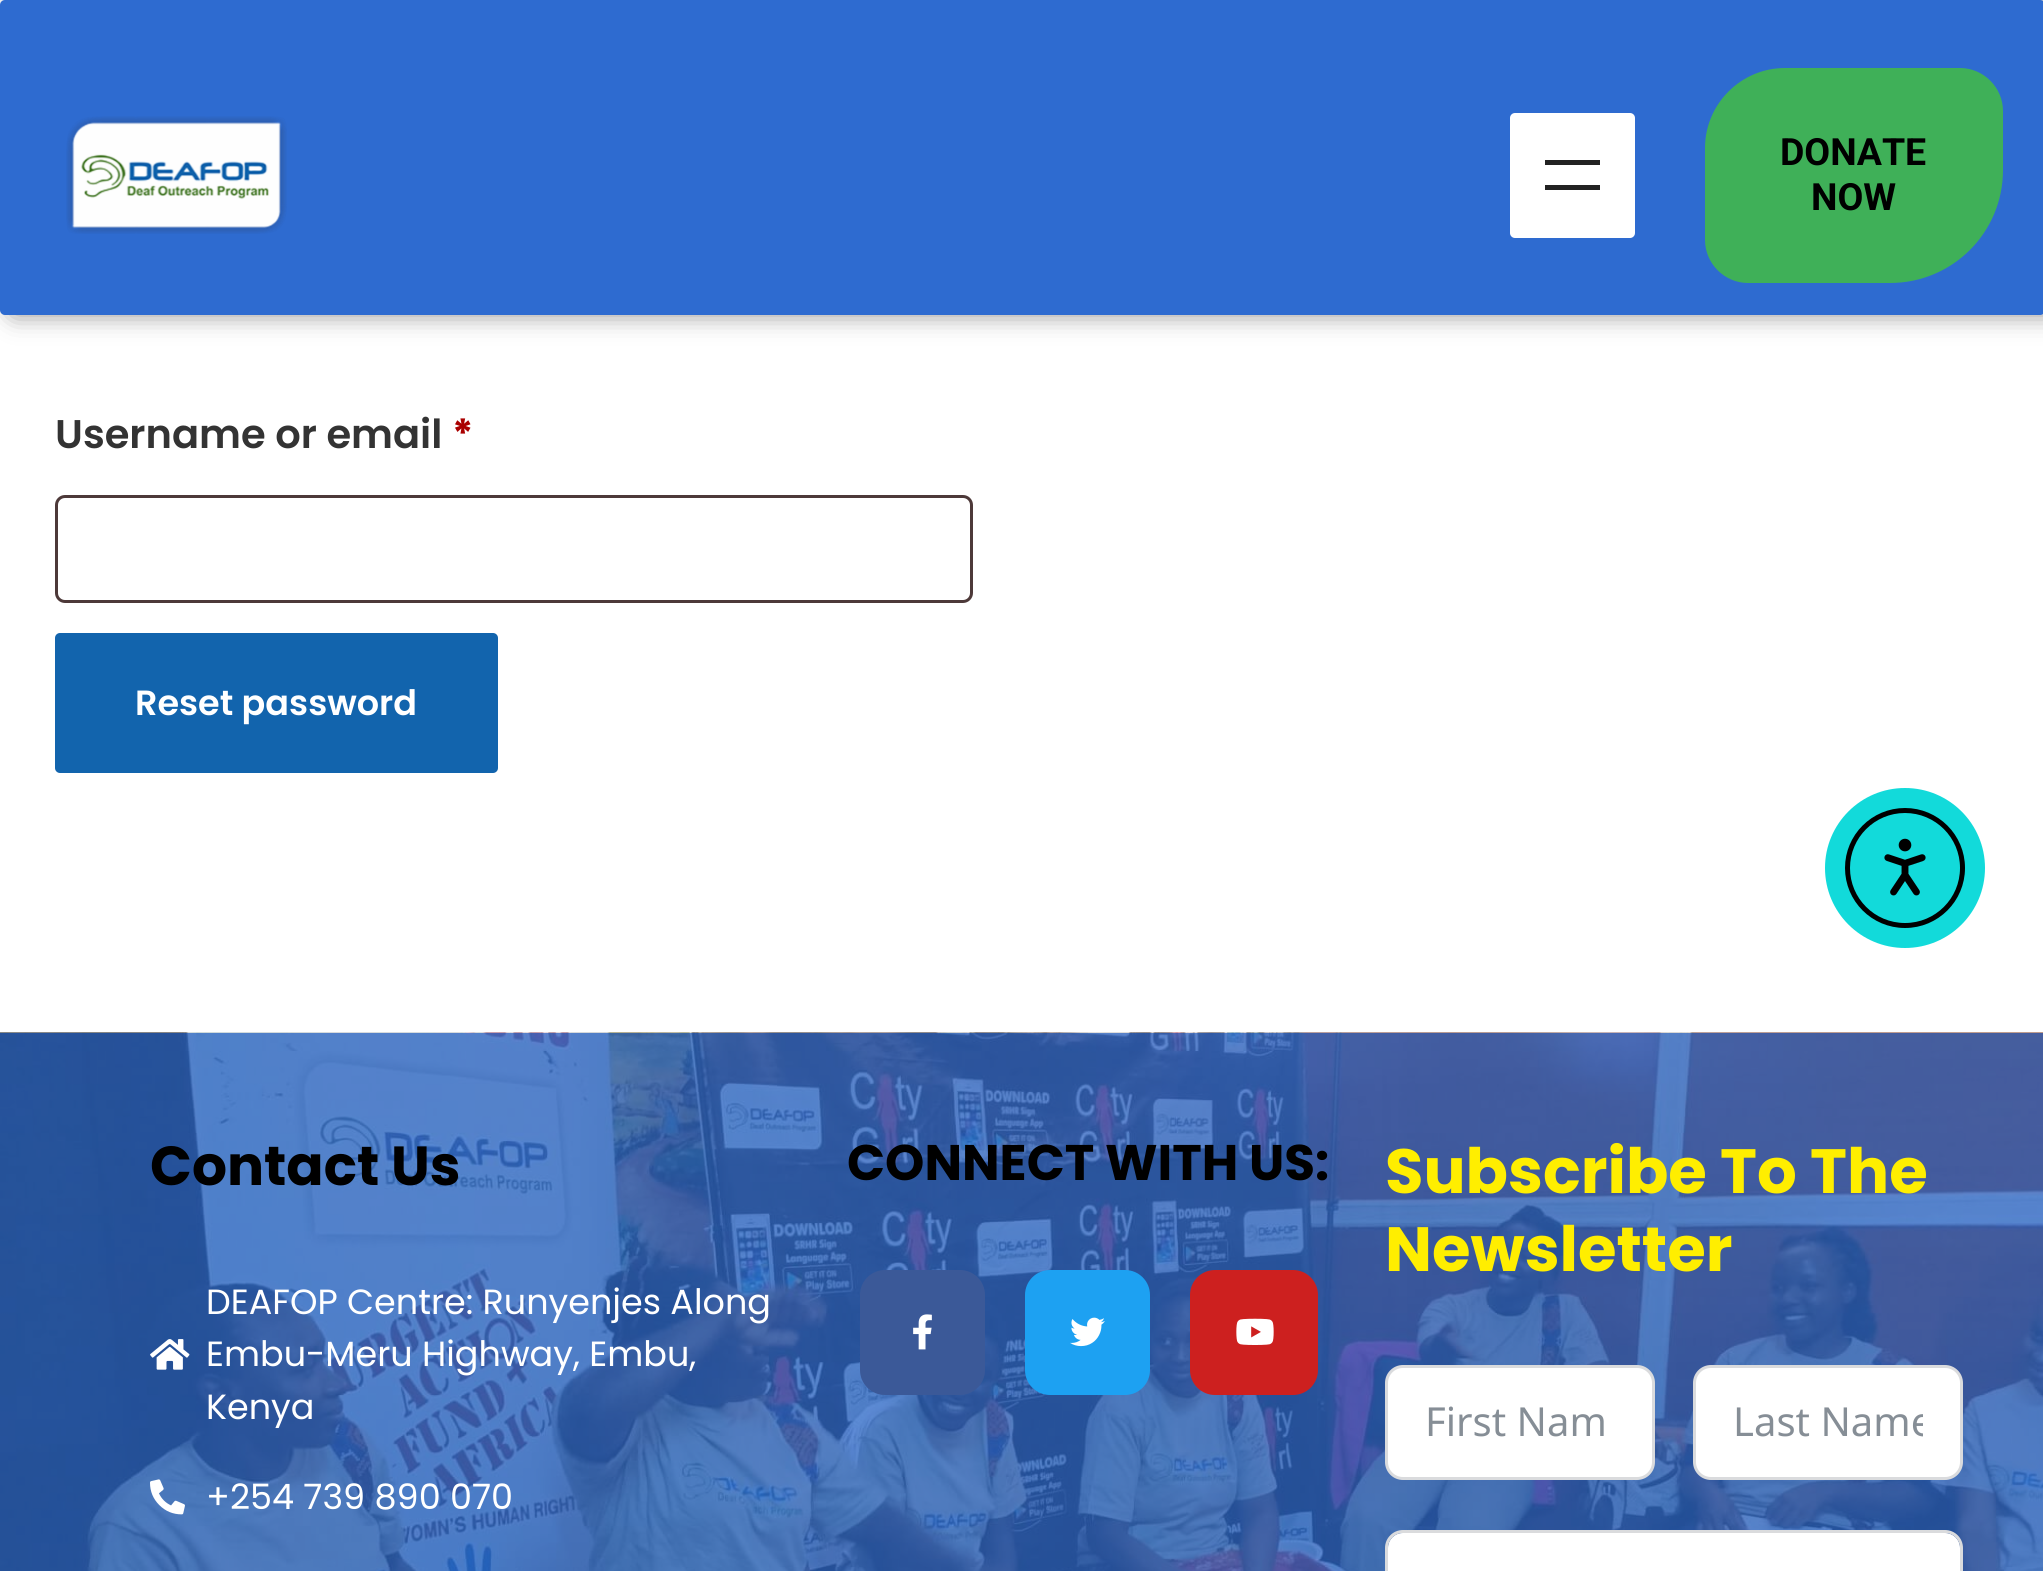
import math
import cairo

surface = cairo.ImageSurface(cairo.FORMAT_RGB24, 2043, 1571)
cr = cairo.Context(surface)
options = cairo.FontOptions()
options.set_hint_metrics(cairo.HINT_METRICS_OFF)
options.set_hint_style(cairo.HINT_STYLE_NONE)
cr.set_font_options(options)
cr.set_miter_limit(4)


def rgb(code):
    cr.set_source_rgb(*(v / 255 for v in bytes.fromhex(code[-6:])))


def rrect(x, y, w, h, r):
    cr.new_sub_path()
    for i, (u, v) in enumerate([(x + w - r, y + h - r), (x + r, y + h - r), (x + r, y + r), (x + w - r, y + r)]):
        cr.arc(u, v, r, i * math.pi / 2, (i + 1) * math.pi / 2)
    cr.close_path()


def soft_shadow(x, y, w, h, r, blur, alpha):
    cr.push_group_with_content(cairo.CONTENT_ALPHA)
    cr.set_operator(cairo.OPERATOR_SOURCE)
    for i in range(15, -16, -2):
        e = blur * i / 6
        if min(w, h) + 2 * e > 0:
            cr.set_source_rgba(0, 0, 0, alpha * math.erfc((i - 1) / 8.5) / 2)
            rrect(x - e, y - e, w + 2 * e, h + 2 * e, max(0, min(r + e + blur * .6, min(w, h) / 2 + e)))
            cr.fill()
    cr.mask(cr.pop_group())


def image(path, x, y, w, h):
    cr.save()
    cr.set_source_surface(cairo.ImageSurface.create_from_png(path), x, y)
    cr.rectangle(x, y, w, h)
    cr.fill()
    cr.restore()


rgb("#ffffff")
cr.paint()
rgb("#3d3b3b")
soft_shadow(10, 0, 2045, 315, 5, 12.5, 0.55)
rgb("#2e6bd0")
rrect(0, 0, 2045, 315, 5)
cr.fill()
image("img/1.png", 66, 116, 221, 118)
rgb("#ffffff")
rrect(1510, 113, 125, 125, 5)
cr.fill()
rgb("#222222")
cr.rectangle(1545, 160, 55, 5)
cr.fill()
cr.rectangle(1545, 185, 55, 5)
cr.fill()
rgb("#3fb058")
cr.new_path()
cr.move_to(1785, 68)
cr.line_to(1960, 68)
cr.curve_to(1983.5, 68, 2003, 87.5, 2003, 111)
cr.line_to(2003, 170)
cr.curve_to(2003, 232.5, 1952.5, 283, 1890, 283)
cr.line_to(1748, 283)
cr.curve_to(1724.5, 283, 1705, 263.5, 1705, 240)
cr.line_to(1705, 148)
cr.curve_to(1705, 104, 1741, 68, 1785, 68)
cr.close_path()
cr.fill()
rrect(56.5, 496.5, 915, 105, 8.5)
rgb("#4d3939")
cr.set_line_width(3)
cr.stroke()
rgb("#1264ad")
rrect(55, 633, 443, 140, 5)
cr.fill()
rgb("#12dada")
cr.arc(1905, 868, 80, 0, 2 * math.pi)
cr.fill()
cr.arc(1905, 868, 57.5, 0, 2 * math.pi)
rgb("#000000")
cr.set_line_width(5)
cr.stroke()
image("img/2.png", 1884, 838, 42, 58)
image("img/3.png", 0, 1032, 2043, 539)
image("img/4.png", 150, 1339, 40, 31)
image("img/5.png", 150, 1479, 35, 36)
rgb("#3b5998")
rrect(860, 1270, 125, 125, 25)
cr.fill()
image("img/6.png", 913, 1314, 19, 36)
rgb("#1da1f2")
rrect(1025, 1270, 125, 125, 25)
cr.fill()
image("img/7.png", 1070, 1317, 35, 30)
rgb("#cd201f")
rrect(1190, 1270, 128, 125, 25)
cr.fill()
image("img/8.png", 1236, 1318, 38, 27)
rgb("#ffffff")
rrect(1386.5, 1366.5, 267, 112, 16.5)
cr.fill_preserve()
rgb("#dadbdd")
cr.set_line_width(3)
cr.stroke()
rgb("#ffffff")
rrect(1694.5, 1366.5, 267, 112, 16.5)
cr.fill_preserve()
rgb("#dadbdd")
cr.stroke()
rgb("#ffffff")
rrect(1388, 1533, 572, 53, 15)
cr.fill()
rrect(1386.5, 1531.5, 575, 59, 16.5)
rgb("#dadbdd")
cr.stroke()
cr.select_font_face("Roboto", cairo.FONT_SLANT_NORMAL, cairo.FONT_WEIGHT_BOLD)
cr.set_font_size(37.5)
rgb("#000000")
cr.move_to(1780, 165)
cr.show_text("DONATE")
cr.move_to(1811, 210)
cr.show_text("NOW")
cr.select_font_face("Poppins SemiBold")
cr.set_font_size(40)
rgb("#333333")
cr.move_to(55, 448)
cr.show_text("Username or email")
cr.select_font_face("Poppins", cairo.FONT_SLANT_NORMAL, cairo.FONT_WEIGHT_BOLD)
rgb("#aa0000")
cr.move_to(452, 448)
cr.show_text("*")
cr.select_font_face("Poppins SemiBold")
cr.set_font_size(35)
rgb("#ffffff")
cr.move_to(135, 715)
cr.show_text("Reset password")
cr.select_font_face("Poppins", cairo.FONT_SLANT_NORMAL, cairo.FONT_WEIGHT_BOLD)
cr.set_font_size(55)
rgb("#000000")
cr.move_to(150, 1185)
cr.show_text("Contact Us")
cr.select_font_face("Poppins")
cr.set_font_size(35)
rgb("#ffffff")
for x, y, s in [
    (206, 1314, "DEAFOP Centre: Runyenjes Along"),
    (206, 1366, "Embu-Meru Highway, Embu,"),
    (206, 1419, "Kenya"),
    (206, 1509, "+254 739 890 070"),
]:
    cr.move_to(x, y)
    cr.show_text(s)
cr.select_font_face("Poppins", cairo.FONT_SLANT_NORMAL, cairo.FONT_WEIGHT_BOLD)
cr.set_font_size(50)
rgb("#000000")
cr.move_to(847, 1180)
cr.show_text("CONNECT WITH US:")
cr.set_font_size(62.5)
rgb("#ffee00")
cr.move_to(1385, 1193)
cr.show_text("Subscribe To The")
cr.move_to(1385, 1271)
cr.show_text("Newsletter")
cr.select_font_face("Noto Sans")
cr.set_font_size(40)
rgb("#868e96")
cr.move_to(1425, 1436)
cr.show_text("First Nam")
cr.save()
cr.rectangle(1733, 1395, 190, 55)
cr.clip()
cr.move_to(1733, 1436)
cr.show_text("Last Name")
cr.restore()
surface.write_to_png("page.png")
